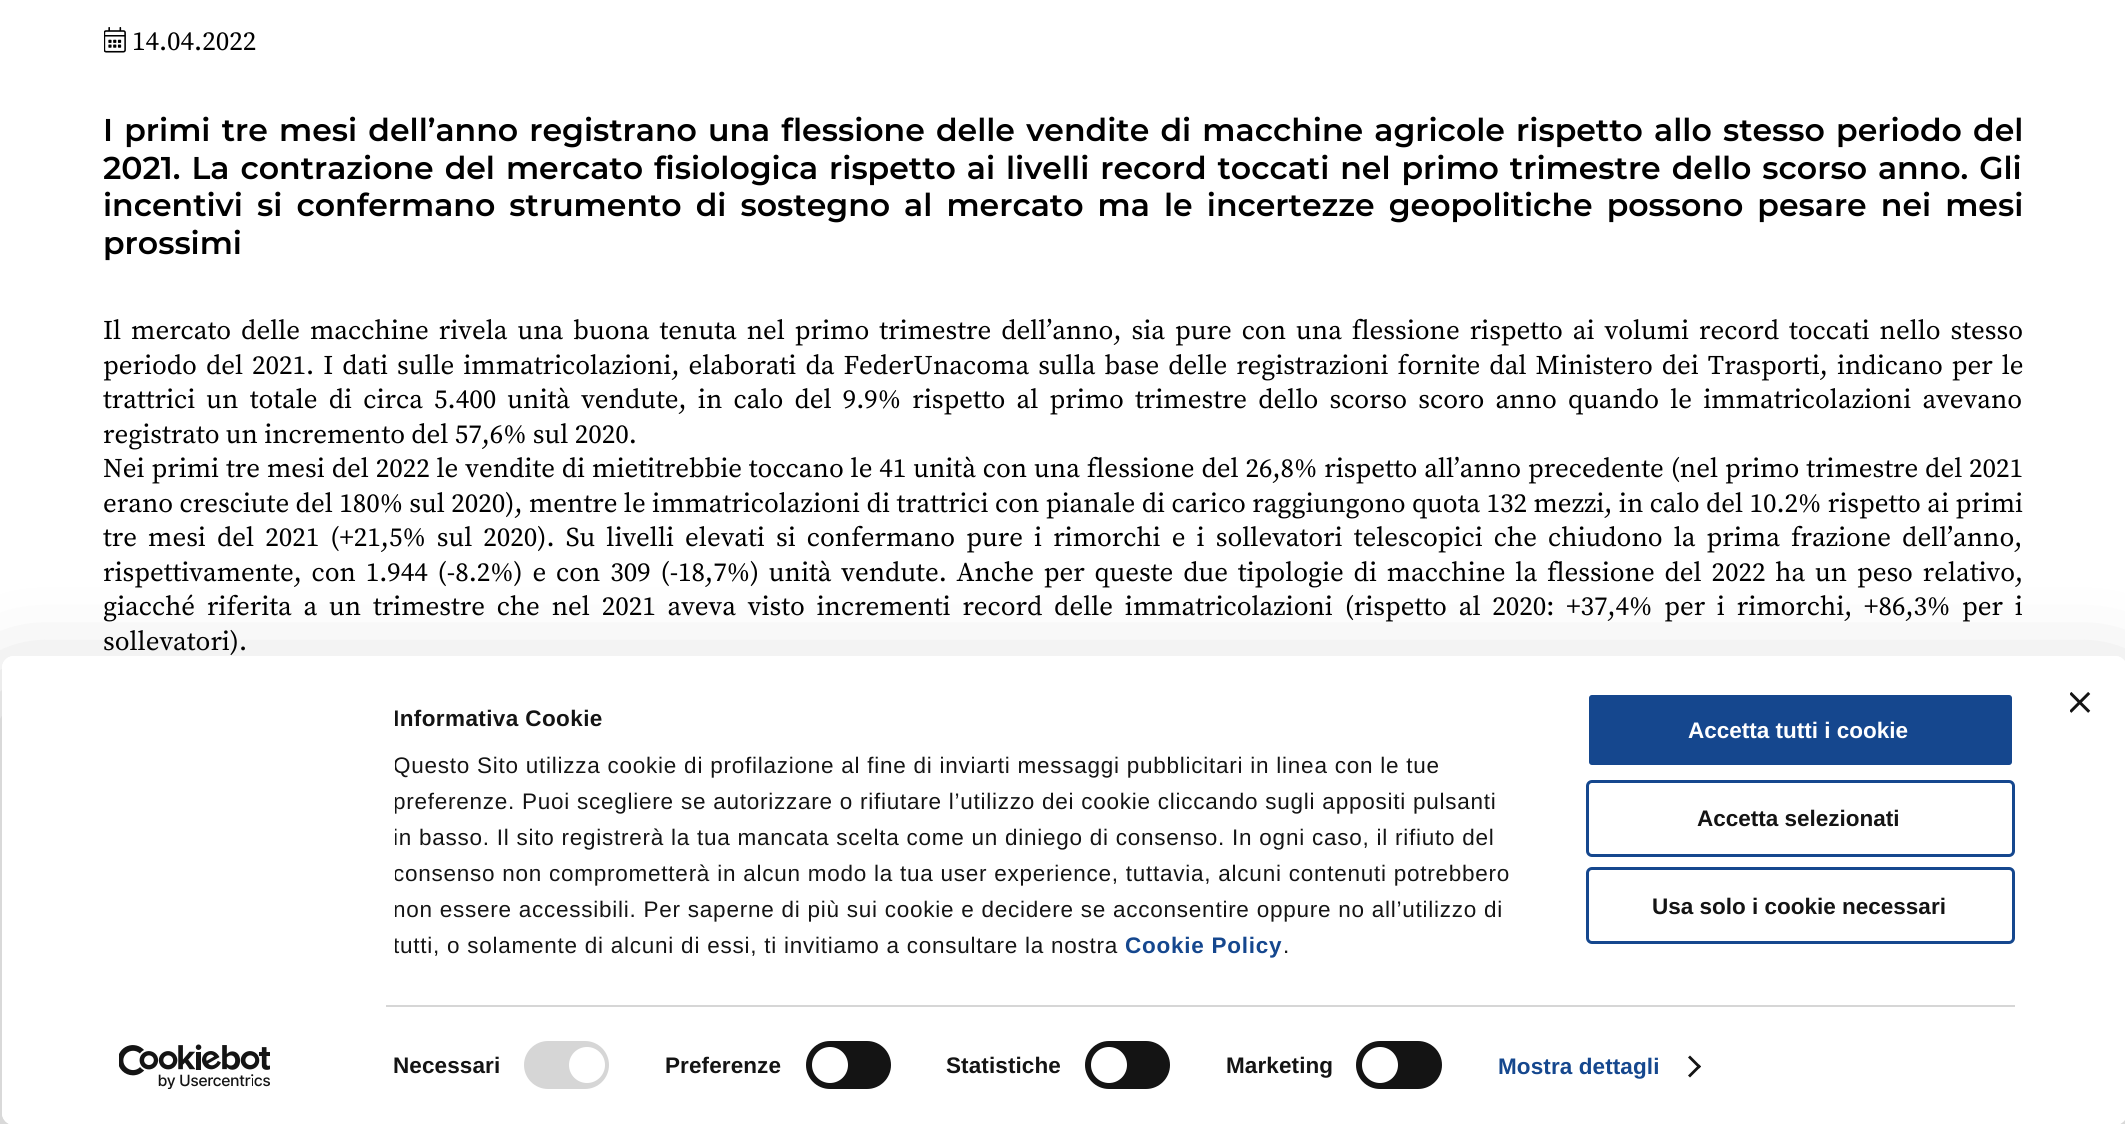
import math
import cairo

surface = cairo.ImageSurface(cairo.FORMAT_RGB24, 2125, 1124)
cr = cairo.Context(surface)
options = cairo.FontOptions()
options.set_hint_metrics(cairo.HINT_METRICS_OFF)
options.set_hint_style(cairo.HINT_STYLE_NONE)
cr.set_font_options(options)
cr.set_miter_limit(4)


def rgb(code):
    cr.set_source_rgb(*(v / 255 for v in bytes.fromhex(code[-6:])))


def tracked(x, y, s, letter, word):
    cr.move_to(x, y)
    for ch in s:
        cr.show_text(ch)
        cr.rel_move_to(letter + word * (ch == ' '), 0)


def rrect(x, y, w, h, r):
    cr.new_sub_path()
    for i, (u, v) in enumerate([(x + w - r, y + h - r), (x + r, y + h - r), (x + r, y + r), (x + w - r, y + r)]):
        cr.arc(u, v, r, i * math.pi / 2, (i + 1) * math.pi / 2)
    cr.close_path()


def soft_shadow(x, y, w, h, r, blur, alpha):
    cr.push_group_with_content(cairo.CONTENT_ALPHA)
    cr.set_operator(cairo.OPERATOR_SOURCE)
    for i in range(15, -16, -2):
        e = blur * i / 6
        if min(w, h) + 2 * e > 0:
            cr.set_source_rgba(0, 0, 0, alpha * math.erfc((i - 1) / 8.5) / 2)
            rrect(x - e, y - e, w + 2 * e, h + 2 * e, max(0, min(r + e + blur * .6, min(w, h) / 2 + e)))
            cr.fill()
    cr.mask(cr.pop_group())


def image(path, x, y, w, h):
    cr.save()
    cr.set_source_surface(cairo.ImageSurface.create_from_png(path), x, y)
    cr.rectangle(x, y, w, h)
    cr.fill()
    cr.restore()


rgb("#ffffff")
cr.paint()
image("img/1.png", 104, 27, 22, 26)
cr.save()
cr.set_fill_rule(cairo.FILL_RULE_EVEN_ODD)
cr.new_path()
cr.move_to(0, 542)
cr.line_to(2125, 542)
cr.line_to(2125, 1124)
cr.line_to(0, 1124)
cr.close_path()
cr.move_to(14, 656)
cr.line_to(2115, 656)
cr.curve_to(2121.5, 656, 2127, 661.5, 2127, 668)
cr.line_to(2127, 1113)
cr.curve_to(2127, 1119.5, 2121.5, 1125, 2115, 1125)
cr.line_to(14, 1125)
cr.curve_to(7.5, 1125, 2, 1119.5, 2, 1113)
cr.line_to(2, 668)
cr.curve_to(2, 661.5, 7.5, 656, 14, 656)
cr.close_path()
cr.clip()
rgb("#000000")
soft_shadow(2, 701, 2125, 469, 12, 52.5, 0.3)
cr.restore()
rgb("#ffffff")
rrect(2, 656, 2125, 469, 12)
cr.fill()
image("img/2.png", 2070, 692, 21, 21)
rgb("#d6d6d6")
cr.rectangle(386, 1005, 1629, 2)
cr.fill()
rrect(524, 1041, 85, 48, 24)
cr.fill()
rgb("#ffffff")
cr.arc(587, 1065, 18, 0, 2 * math.pi)
cr.fill()
rgb("#141414")
rrect(806, 1041, 85, 48, 24)
cr.fill()
rgb("#ffffff")
cr.arc(830, 1065, 18, 0, 2 * math.pi)
cr.fill()
rgb("#141414")
rrect(1085, 1041, 85, 48, 24)
cr.fill()
rgb("#ffffff")
cr.arc(1109, 1065, 18, 0, 2 * math.pi)
cr.fill()
rgb("#141414")
rrect(1356, 1041, 86, 48, 24)
cr.fill()
rgb("#ffffff")
cr.arc(1380, 1065, 18, 0, 2 * math.pi)
cr.fill()
rgb("#141414")
cr.new_path()
cr.move_to(1690, 1055.5)
cr.line_to(1701, 1066.5)
cr.line_to(1699, 1068.5)
cr.line_to(1688, 1057.5)
cr.close_path()
cr.fill()
cr.new_path()
cr.move_to(1699, 1064.5)
cr.line_to(1701, 1066.5)
cr.line_to(1690, 1077.5)
cr.line_to(1688, 1075.5)
cr.close_path()
cr.fill()
rgb("#15478e")
rrect(1587.5, 693.5, 426, 73, 4.5)
cr.fill_preserve()
rgb("#ffffff")
cr.set_line_width(3)
cr.stroke()
rrect(1587.5, 781.5, 426, 74, 4.5)
rgb("#15478e")
cr.stroke()
rrect(1587.5, 868.5, 426, 74, 4.5)
cr.stroke()
image("img/3.png", 119, 1044, 151, 45)
cr.select_font_face("Source Serif Pro")
cr.set_font_size(27)
rgb("#000000")
cr.move_to(132, 50)
cr.show_text("14.04.2022")
cr.select_font_face("Montserrat SemiBold")
cr.set_font_size(31.5)
tracked(103, 141, "I primi tre mesi dell’anno registrano una flessione delle vendite di macchine agricole rispetto allo stesso periodo del", 0, 2.5)
tracked(103, 179, "2021. La contrazione del mercato fisiologica rispetto ai livelli record toccati nel primo trimestre dello scorso anno. Gli", 0, 2.25)
tracked(103, 216, "incentivi si confermano strumento di sostegno al mercato ma le incertezze geopolitiche possono pesare nei mesi", 0, 5.4)
cr.move_to(103, 254)
cr.show_text("prossimi")
cr.select_font_face("Source Serif Pro")
cr.set_font_size(27)
tracked(103, 339, "Il mercato delle macchine rivela una buona tenuta nel primo trimestre dell’anno, sia pure con una flessione rispetto ai volumi record toccati nello stesso", 0, 3.7)
tracked(103, 374, "periodo del 2021. I dati sulle immatricolazioni, elaborati da FederUnacoma sulla base delle registrazioni fornite dal Ministero dei Trasporti, indicano per le", 0, 2.7)
tracked(103, 408, "trattrici un totale di circa 5.400 unità vendute, in calo del 9.9% rispetto al primo trimestre dello scorso scoro anno quando le immatricolazioni avevano", 0, 4.9)
cr.move_to(103, 443)
cr.show_text("registrato un incremento del 57,6% sul 2020.")
tracked(103, 477, "Nei primi tre mesi del 2022 le vendite di mietitrebbie toccano le 41 unità con una flessione del 26,8% rispetto all’anno precedente (nel primo trimestre del 2021", 0, 0.6)
tracked(103, 512, "erano cresciute del 180% sul 2020), mentre le immatricolazioni di trattrici con pianale di carico raggiungono quota 132 mezzi, in calo del 10.2% rispetto ai primi", 0, 0.15)
tracked(103, 546, "tre mesi del 2021 (+21,5% sul 2020). Su livelli elevati si confermano pure i rimorchi e i sollevatori telescopici che chiudono la prima frazione dell’anno,", 0, 4.8)
tracked(103, 581, "rispettivamente, con 1.944 (-8.2%) e con 309 (-18,7%) unità vendute. Anche per queste due tipologie di macchine la flessione del 2022 ha un peso relativo,", 0, 3.5)
tracked(103, 615, "giacché riferita a un trimestre che nel 2021 aveva visto incrementi record delle immatricolazioni (rispetto al 2020: +37,4% per i rimorchi, +86,3% per i", 0, 5.5)
cr.move_to(103, 650)
cr.show_text("sollevatori).")
cr.save()
cr.rectangle(395, 701, 1147, 262)
cr.clip()
cr.select_font_face("Liberation Sans", cairo.FONT_SLANT_NORMAL, cairo.FONT_WEIGHT_BOLD)
cr.set_font_size(22.5)
rgb("#141414")
tracked(393, 726, "Informativa Cookie", 0.4, 0)
cr.select_font_face("Liberation Sans")
for x, y, s in [
    (393, 773, "Questo Sito utilizza cookie di profilazione al fine di inviarti messaggi pubblicitari in linea con le tue"),
    (393, 809, "preferenze. Puoi scegliere se autorizzare o rifiutare l’utilizzo dei cookie cliccando sugli appositi pulsanti"),
    (393, 845, "in basso. Il sito registrerà la tua mancata scelta come un diniego di consenso. In ogni caso, il rifiuto del"),
    (393, 881, "consenso non comprometterà in alcun modo la tua user experience, tuttavia, alcuni contenuti potrebbero"),
    (393, 917, "non essere accessibili. Per saperne di più sui cookie e decidere se acconsentire oppure no all’utilizzo di"),
    (393, 953, "tutti, o solamente di alcuni di essi, ti invitiamo a consultare la nostra"),
]:
    tracked(x, y, s, 0.75, 0)
cr.restore()
cr.select_font_face("Liberation Sans", cairo.FONT_SLANT_NORMAL, cairo.FONT_WEIGHT_BOLD)
cr.set_font_size(22.5)
rgb("#15478e")
tracked(1125, 953, "Cookie Policy", 0.75, 0)
cr.select_font_face("Liberation Sans")
rgb("#141414")
tracked(1283, 953, ".", 0.75, 0)
cr.select_font_face("Liberation Sans", cairo.FONT_SLANT_NORMAL, cairo.FONT_WEIGHT_BOLD)
for x, y, s in [
    (393, 1073, "Necessari"),
    (665, 1073, "Preferenze"),
    (946, 1073, "Statistiche"),
    (1226, 1073, "Marketing"),
]:
    tracked(x, y, s, 0.1, 0)
rgb("#15478e")
tracked(1498, 1074, "Mostra dettagli", 0.1, 0)
rgb("#ffffff")
cr.move_to(1688, 738)
cr.show_text("Accetta tutti i cookie")
rgb("#141414")
cr.move_to(1697, 826)
cr.show_text("Accetta selezionati")
cr.move_to(1652, 914)
cr.show_text("Usa solo i cookie necessari")
surface.write_to_png("page.png")
